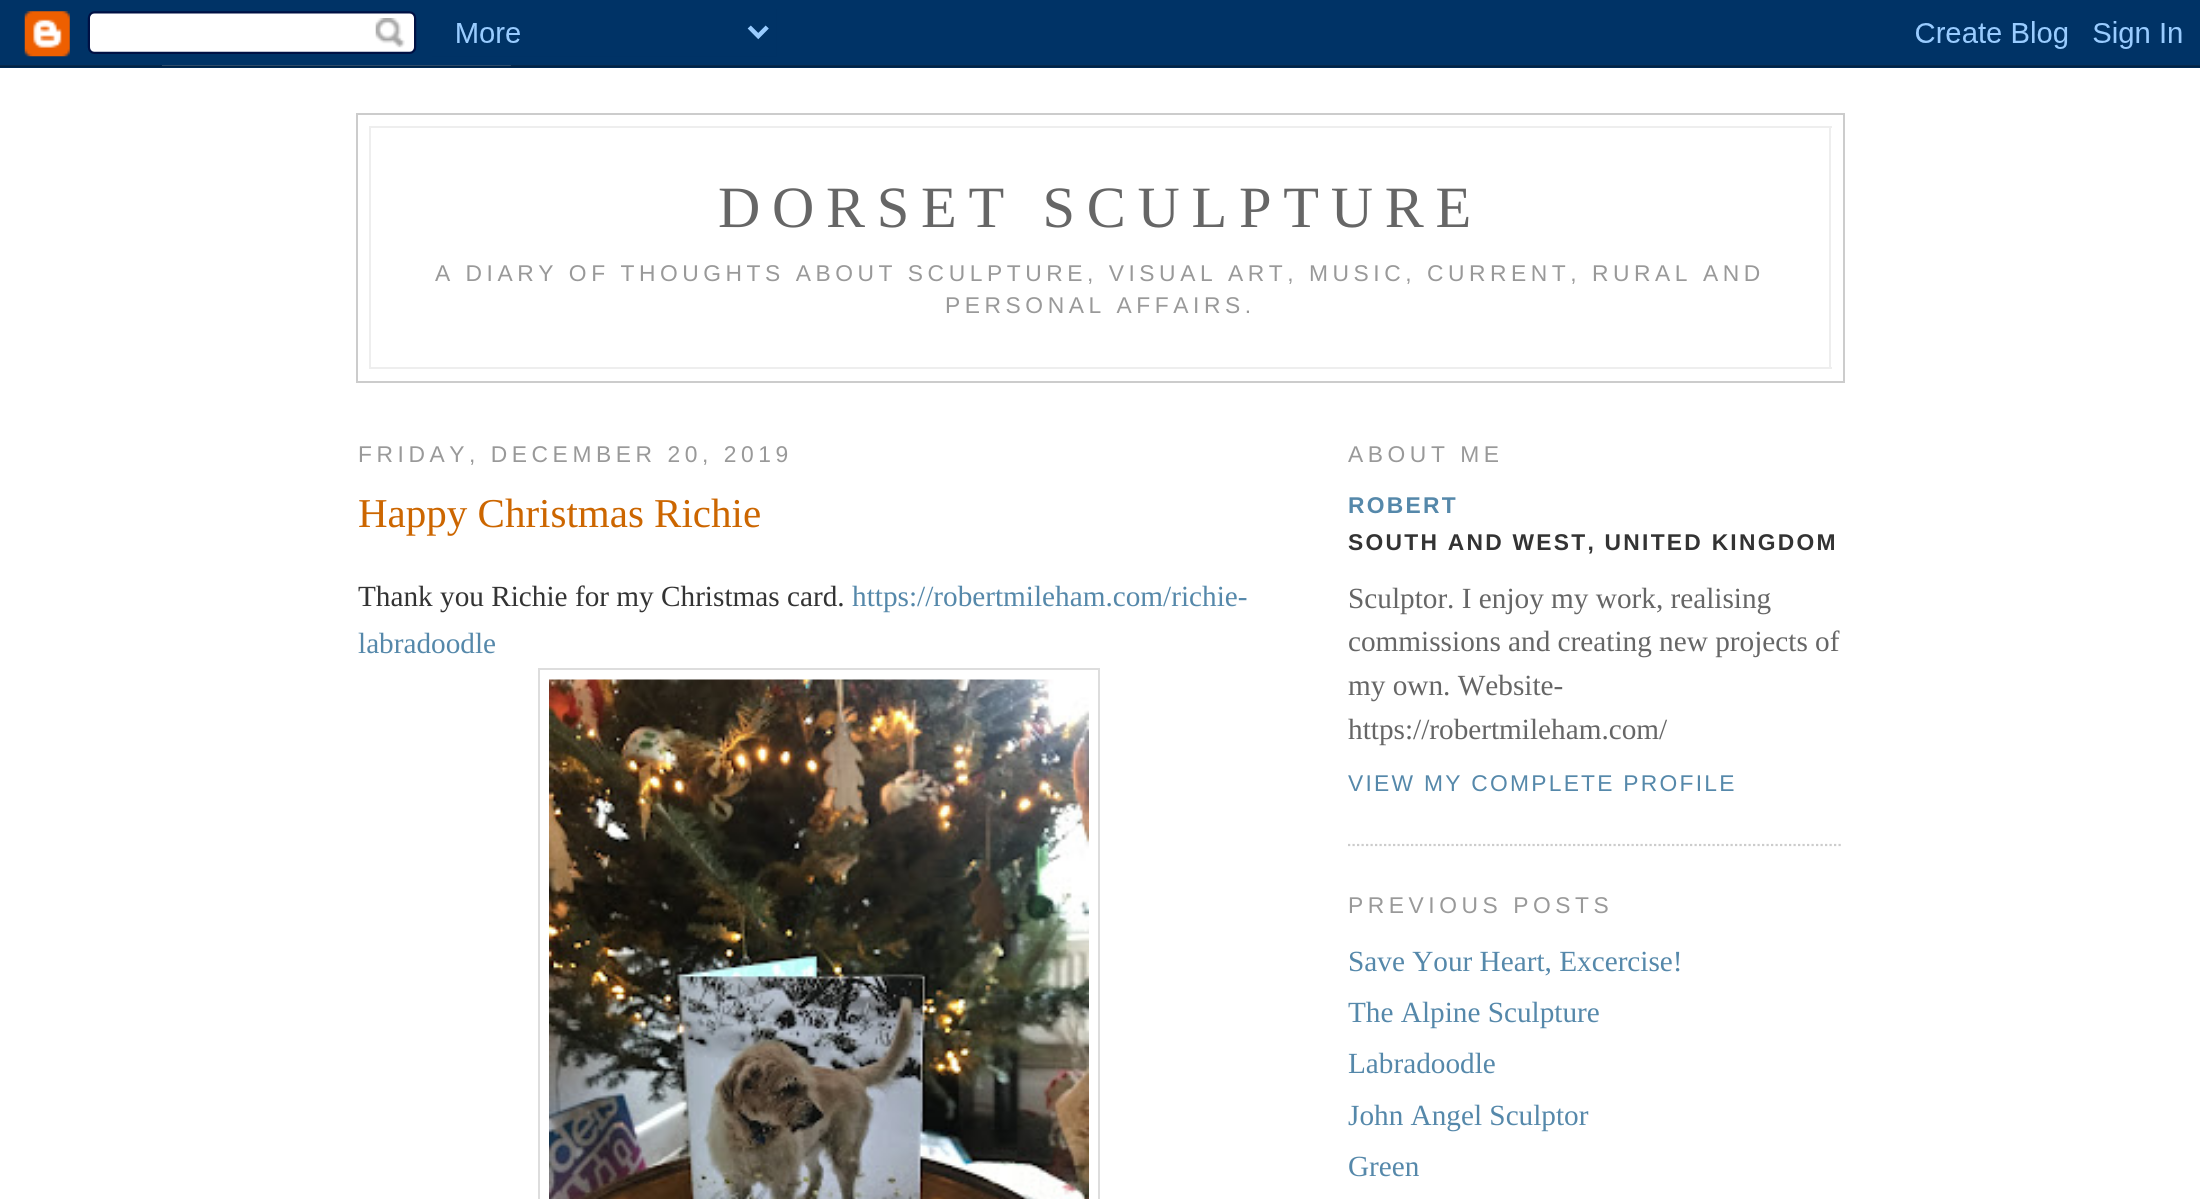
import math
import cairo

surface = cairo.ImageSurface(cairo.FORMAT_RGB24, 2200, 1199)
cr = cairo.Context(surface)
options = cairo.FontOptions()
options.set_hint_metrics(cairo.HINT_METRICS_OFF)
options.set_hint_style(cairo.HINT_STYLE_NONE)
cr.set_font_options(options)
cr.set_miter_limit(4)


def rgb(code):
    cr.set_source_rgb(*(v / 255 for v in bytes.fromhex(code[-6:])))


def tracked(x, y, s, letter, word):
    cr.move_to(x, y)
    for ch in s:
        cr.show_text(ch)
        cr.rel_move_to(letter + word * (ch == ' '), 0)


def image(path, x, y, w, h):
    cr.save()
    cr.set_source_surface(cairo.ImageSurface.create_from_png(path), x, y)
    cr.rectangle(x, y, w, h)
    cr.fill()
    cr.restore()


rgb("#ffffff")
cr.paint()
image("img/1.png", 0, 0, 2200, 68)
cr.rectangle(357, 114, 1487, 268)
rgb("#cccccc")
cr.stroke()
for x, y, w, h, color in [
    (369, 126, 1463, 2, "#eeeeee"),
    (1829, 126, 2, 243, "#eeeeee"),
    (369, 126, 2, 133, "#eeeeee"),
    (369, 367, 1463, 2, "#eeeeee"),
    (369, 259, 2, 110, "#eeeeee"),
]:
    rgb(color)
    cr.rectangle(x, y, w, h)
    cr.fill()
cr.rectangle(539, 669, 560, 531)
rgb("#dddddd")
cr.stroke()
image("img/2.png", 549, 679, 540, 520)
cr.new_path()
cr.move_to(1348, 845)
cr.line_to(1843, 845)
rgb("#cccccc")
cr.set_line_width(2.2)
cr.set_dash([2.25, 2.25])
cr.stroke()
cr.select_font_face("Liberation Serif")
cr.set_font_size(58.5)
rgb("#666666")
tracked(718, 227, "DORSET SCULPTURE", 11.75, 0)
cr.select_font_face("Liberation Sans")
cr.set_font_size(22.82)
rgb("#999999")
tracked(435, 281, "A DIARY OF THOUGHTS ABOUT SCULPTURE, VISUAL ART, MUSIC, CURRENT, RURAL AND", 4.55, -0.1)
tracked(945, 313, "PERSONAL AFFAIRS.", 4.55, 0)
tracked(358, 462, "FRIDAY, DECEMBER 20, 2019", 4.55, 0)
cr.select_font_face("Liberation Serif")
cr.set_font_size(41)
rgb("#cc6600")
cr.move_to(358, 527)
cr.show_text("Happy Christmas Richie")
cr.set_font_size(29.25)
rgb("#333333")
cr.move_to(358, 606)
cr.show_text("Thank you Richie for my Christmas card.")
rgb("#5588aa")
cr.move_to(852, 606)
cr.show_text("https://robertmileham.com/richie-")
cr.move_to(358, 653)
cr.show_text("labradoodle")
cr.select_font_face("Liberation Sans")
cr.set_font_size(22.82)
rgb("#999999")
tracked(1348, 462, "ABOUT ME", 4.55, 0)
cr.select_font_face("Liberation Sans", cairo.FONT_SLANT_NORMAL, cairo.FONT_WEIGHT_BOLD)
rgb("#5588aa")
tracked(1348, 513, "ROBERT", 2.25, 0)
rgb("#333333")
tracked(1348, 550, "SOUTH AND WEST, UNITED KINGDOM", 2.25, 0)
cr.select_font_face("Liberation Serif")
cr.set_font_size(29.25)
rgb("#666666")
for x, y, s in [
    (1348, 608, "Sculptor. I enjoy my work, realising"),
    (1348, 651, "commissions and creating new projects of"),
    (1348, 695, "my own. Website-"),
    (1348, 739, "https://robertmileham.com/"),
]:
    cr.move_to(x, y)
    cr.show_text(s)
cr.select_font_face("Liberation Sans")
cr.set_font_size(22.82)
rgb("#5588aa")
tracked(1348, 791, "VIEW MY COMPLETE PROFILE", 2.25, 0)
rgb("#999999")
tracked(1348, 913, "PREVIOUS POSTS", 4.55, 0)
cr.select_font_face("Liberation Serif")
cr.set_font_size(29.25)
rgb("#5588aa")
for x, y, s in [
    (1348, 971, "Save Your Heart, Excercise!"),
    (1348, 1022, "The Alpine Sculpture"),
    (1348, 1073, "Labradoodle"),
    (1348, 1125, "John Angel Sculptor"),
    (1348, 1176, "Green"),
]:
    cr.move_to(x, y)
    cr.show_text(s)
surface.write_to_png("page.png")
